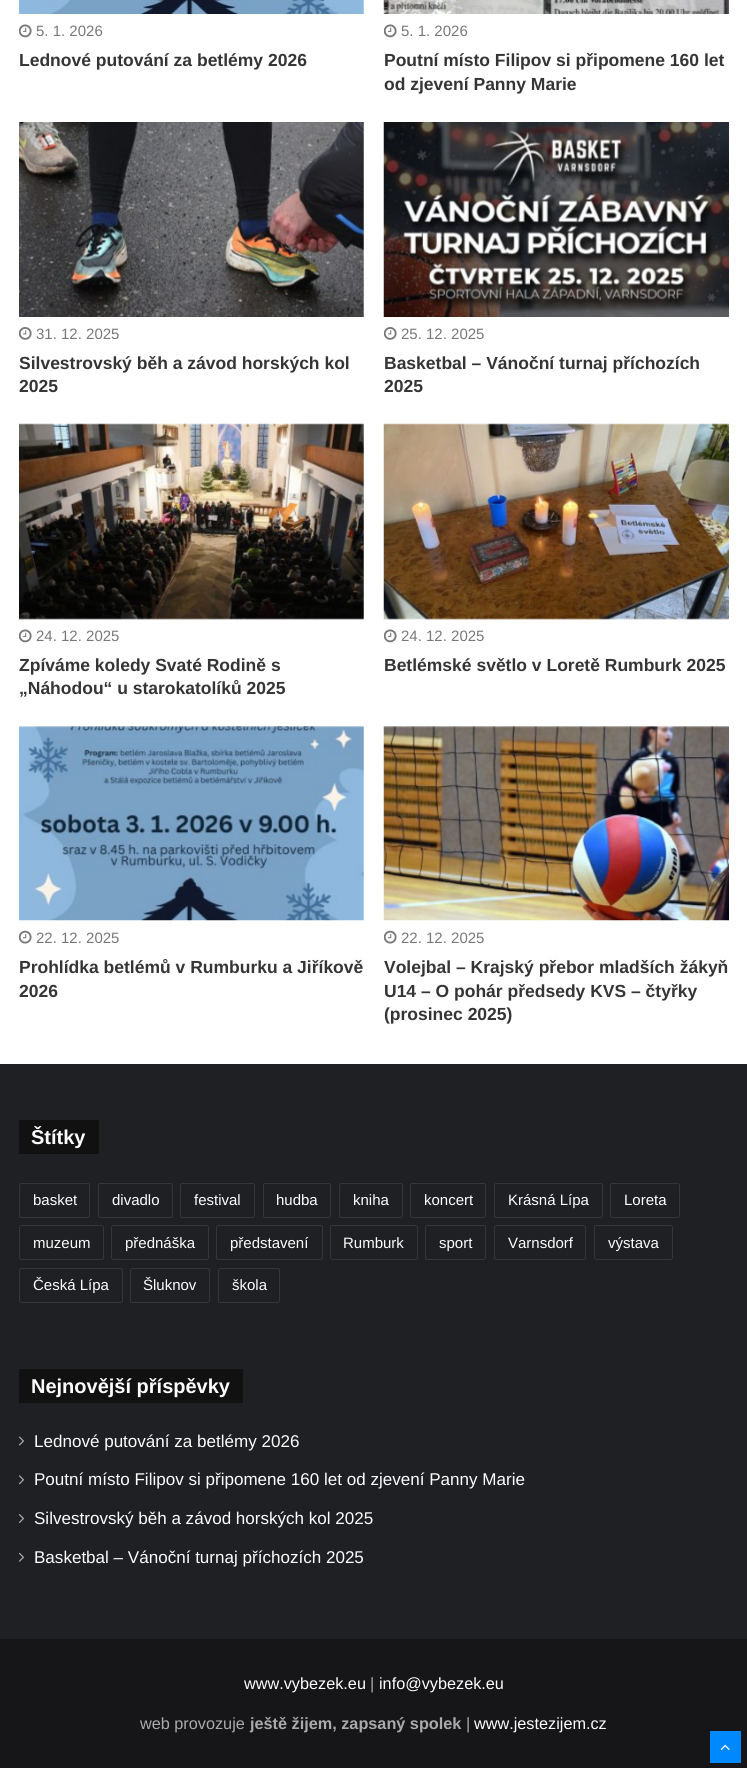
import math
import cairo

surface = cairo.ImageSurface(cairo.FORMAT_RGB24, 747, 1768)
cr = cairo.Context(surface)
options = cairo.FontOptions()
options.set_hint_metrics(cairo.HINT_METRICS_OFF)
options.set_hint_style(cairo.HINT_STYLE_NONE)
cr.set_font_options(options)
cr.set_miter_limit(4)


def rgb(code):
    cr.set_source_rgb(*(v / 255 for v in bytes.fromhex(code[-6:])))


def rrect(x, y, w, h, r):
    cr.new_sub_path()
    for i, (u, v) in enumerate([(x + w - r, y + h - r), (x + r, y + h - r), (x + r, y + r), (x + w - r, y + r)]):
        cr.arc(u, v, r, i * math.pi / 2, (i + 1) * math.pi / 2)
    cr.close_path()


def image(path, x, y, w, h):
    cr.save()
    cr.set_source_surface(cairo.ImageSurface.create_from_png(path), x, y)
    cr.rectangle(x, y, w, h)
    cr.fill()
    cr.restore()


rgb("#ffffff")
cr.paint()
image("img/1.png", 19, 0, 345, 14)
image("img/2.png", 19, 24, 13, 14)
image("img/3.png", 383, 0, 346, 14)
image("img/2.png", 384, 24, 13, 14)
image("img/4.png", 19, 122, 345, 195)
image("img/5.png", 19, 327, 13, 13)
image("img/6.png", 383, 122, 346, 195)
image("img/5.png", 384, 327, 13, 13)
image("img/7.png", 19, 423, 345, 197)
image("img/2.png", 19, 629, 13, 14)
image("img/8.png", 383, 423, 346, 197)
image("img/2.png", 384, 629, 13, 14)
image("img/9.png", 19, 726, 345, 195)
image("img/10.png", 19, 930, 13, 14)
image("img/11.png", 383, 726, 346, 195)
image("img/10.png", 384, 930, 13, 14)
rgb("#1f2024")
cr.rectangle(0, 1064, 747, 575)
cr.fill()
rgb("#111111")
cr.rectangle(19, 1120, 80, 34)
cr.fill()
rrect(19.5, 1183.5, 70, 34, 2)
rgb("#35363a")
cr.set_line_width(1)
cr.stroke()
rrect(98.5, 1183.5, 74, 34, 2)
cr.stroke()
rrect(180.5, 1183.5, 74, 34, 2)
cr.stroke()
rrect(263.5, 1183.5, 67, 34, 2)
cr.stroke()
rrect(339.5, 1183.5, 63, 34, 2)
cr.stroke()
rrect(410.5, 1183.5, 75, 34, 2)
cr.stroke()
rrect(494.5, 1183.5, 108, 34, 2)
cr.stroke()
rrect(610.5, 1183.5, 69, 34, 2)
cr.stroke()
rrect(19.5, 1225.5, 84, 34, 2)
cr.stroke()
rrect(111.5, 1225.5, 97, 34, 2)
cr.stroke()
rrect(216.5, 1225.5, 106, 34, 2)
cr.stroke()
rrect(330.5, 1225.5, 87, 34, 2)
cr.stroke()
rrect(425.5, 1225.5, 60, 34, 2)
cr.stroke()
rrect(494.5, 1225.5, 91, 34, 2)
cr.stroke()
rrect(594.5, 1225.5, 78, 34, 2)
cr.stroke()
rrect(19.5, 1268.5, 103, 34, 2)
cr.stroke()
rrect(130.5, 1268.5, 79, 34, 2)
cr.stroke()
rrect(218.5, 1268.5, 61, 34, 2)
cr.stroke()
rgb("#111111")
cr.rectangle(19, 1369, 224, 34)
cr.fill()
image("img/12.png", 18, 1436, 6, 10)
image("img/13.png", 18, 1475, 7, 10)
image("img/14.png", 18, 1514, 7, 9)
image("img/15.png", 18, 1552, 7, 10)
rgb("#161619")
cr.rectangle(0, 1639, 747, 129)
cr.fill()
rgb("#0088ff")
cr.rectangle(710, 1731, 31, 32)
cr.fill()
image("img/16.png", 720, 1744, 10, 6)
cr.select_font_face("Liberation Sans")
cr.set_font_size(15)
rgb("#787878")
cr.move_to(36, 36)
cr.show_text("5. 1. 2026")
cr.select_font_face("Liberation Sans", cairo.FONT_SLANT_NORMAL, cairo.FONT_WEIGHT_BOLD)
cr.set_font_size(17.5)
rgb("#353535")
cr.move_to(19, 66)
cr.show_text("Lednové putování za betlémy 2026")
cr.select_font_face("Liberation Sans")
cr.set_font_size(15)
rgb("#787878")
cr.move_to(401, 36)
cr.show_text("5. 1. 2026")
cr.select_font_face("Liberation Sans", cairo.FONT_SLANT_NORMAL, cairo.FONT_WEIGHT_BOLD)
cr.set_font_size(17.5)
rgb("#353535")
cr.move_to(384, 66)
cr.show_text("Poutní místo Filipov si připomene 160 let")
cr.move_to(384, 90)
cr.show_text("od zjevení Panny Marie")
cr.select_font_face("Liberation Sans")
cr.set_font_size(15)
rgb("#787878")
cr.move_to(36, 339)
cr.show_text("31. 12. 2025")
cr.select_font_face("Liberation Sans", cairo.FONT_SLANT_NORMAL, cairo.FONT_WEIGHT_BOLD)
cr.set_font_size(17.5)
rgb("#353535")
cr.move_to(19, 369)
cr.show_text("Silvestrovský běh a závod horských kol")
cr.move_to(19, 392)
cr.show_text("2025")
cr.select_font_face("Liberation Sans")
cr.set_font_size(15)
rgb("#787878")
cr.move_to(401, 339)
cr.show_text("25. 12. 2025")
cr.select_font_face("Liberation Sans", cairo.FONT_SLANT_NORMAL, cairo.FONT_WEIGHT_BOLD)
cr.set_font_size(17.5)
rgb("#353535")
cr.move_to(384, 369)
cr.show_text("Basketbal – Vánoční turnaj příchozích")
cr.move_to(384, 392)
cr.show_text("2025")
cr.select_font_face("Liberation Sans")
cr.set_font_size(15)
rgb("#787878")
cr.move_to(36, 641)
cr.show_text("24. 12. 2025")
cr.select_font_face("Liberation Sans", cairo.FONT_SLANT_NORMAL, cairo.FONT_WEIGHT_BOLD)
cr.set_font_size(17.5)
rgb("#353535")
cr.move_to(19, 671)
cr.show_text("Zpíváme koledy Svaté Rodině s")
cr.move_to(19, 694)
cr.show_text("„Náhodou“ u starokatolíků 2025")
cr.select_font_face("Liberation Sans")
cr.set_font_size(15)
rgb("#787878")
cr.move_to(401, 641)
cr.show_text("24. 12. 2025")
cr.select_font_face("Liberation Sans", cairo.FONT_SLANT_NORMAL, cairo.FONT_WEIGHT_BOLD)
cr.set_font_size(17.5)
rgb("#353535")
cr.move_to(384, 671)
cr.show_text("Betlémské světlo v Loretě Rumburk 2025")
cr.select_font_face("Liberation Sans")
cr.set_font_size(15)
rgb("#787878")
cr.move_to(36, 943)
cr.show_text("22. 12. 2025")
cr.select_font_face("Liberation Sans", cairo.FONT_SLANT_NORMAL, cairo.FONT_WEIGHT_BOLD)
cr.set_font_size(17.5)
rgb("#353535")
cr.move_to(19, 973)
cr.show_text("Prohlídka betlémů v Rumburku a Jiříkově")
cr.move_to(19, 997)
cr.show_text("2026")
cr.select_font_face("Liberation Sans")
cr.set_font_size(15)
rgb("#787878")
cr.move_to(401, 943)
cr.show_text("22. 12. 2025")
cr.select_font_face("Liberation Sans", cairo.FONT_SLANT_NORMAL, cairo.FONT_WEIGHT_BOLD)
cr.set_font_size(17.5)
rgb("#353535")
for x, y, s in [
    (384, 973, "Volejbal – Krajský přebor mladších žákyň"),
    (384, 997, "U14 – O pohár předsedy KVS – čtyřky"),
    (384, 1020, "(prosinec 2025)"),
]:
    cr.move_to(x, y)
    cr.show_text(s)
cr.set_font_size(20)
rgb("#fdfdfd")
cr.move_to(31, 1144)
cr.show_text("Štítky")
cr.select_font_face("Liberation Sans")
cr.set_font_size(15)
for x, y, s in [
    (33, 1205, "basket"),
    (112, 1205, "divadlo"),
    (194, 1205, "festival"),
    (276, 1205, "hudba"),
    (353, 1205, "kniha"),
    (424, 1205, "koncert"),
    (508, 1205, "Krásná Lípa"),
    (624, 1205, "Loreta"),
    (33, 1248, "muzeum"),
    (125, 1248, "přednáška"),
    (230, 1248, "představení"),
    (343, 1248, "Rumburk"),
    (439, 1248, "sport"),
    (508, 1248, "Varnsdorf"),
    (608, 1248, "výstava"),
    (33, 1290, "Česká Lípa"),
    (143, 1290, "Šluknov"),
    (232, 1290, "škola"),
]:
    cr.move_to(x, y)
    cr.show_text(s)
cr.select_font_face("Liberation Sans", cairo.FONT_SLANT_NORMAL, cairo.FONT_WEIGHT_BOLD)
cr.set_font_size(20)
cr.move_to(31, 1393)
cr.show_text("Nejnovější příspěvky")
cr.select_font_face("Liberation Sans")
cr.set_font_size(17.05)
for x, y, s in [
    (34, 1447, "Lednové putování za betlémy 2026"),
    (34, 1485, "Poutní místo Filipov si připomene 160 let od zjevení Panny Marie"),
    (34, 1524, "Silvestrovský běh a závod horských kol 2025"),
    (34, 1563, "Basketbal – Vánoční turnaj příchozích 2025"),
]:
    cr.move_to(x, y)
    cr.show_text(s)
cr.set_font_size(16.25)
cr.move_to(244, 1689)
cr.show_text("www.vybezek.eu")
rgb("#aaaaaa")
cr.move_to(370, 1689)
cr.show_text("|")
rgb("#fdfdfd")
cr.move_to(379, 1689)
cr.show_text("info@vybezek.eu")
rgb("#aaaaaa")
cr.move_to(140, 1729)
cr.show_text("web provozuje")
cr.select_font_face("Liberation Sans", cairo.FONT_SLANT_NORMAL, cairo.FONT_WEIGHT_BOLD)
cr.move_to(250, 1729)
cr.show_text("ještě žijem, zapsaný spolek")
cr.select_font_face("Liberation Sans")
cr.move_to(466, 1729)
cr.show_text("|")
rgb("#fdfdfd")
cr.move_to(474, 1729)
cr.show_text("www.jestezijem.cz")
surface.write_to_png("page.png")
